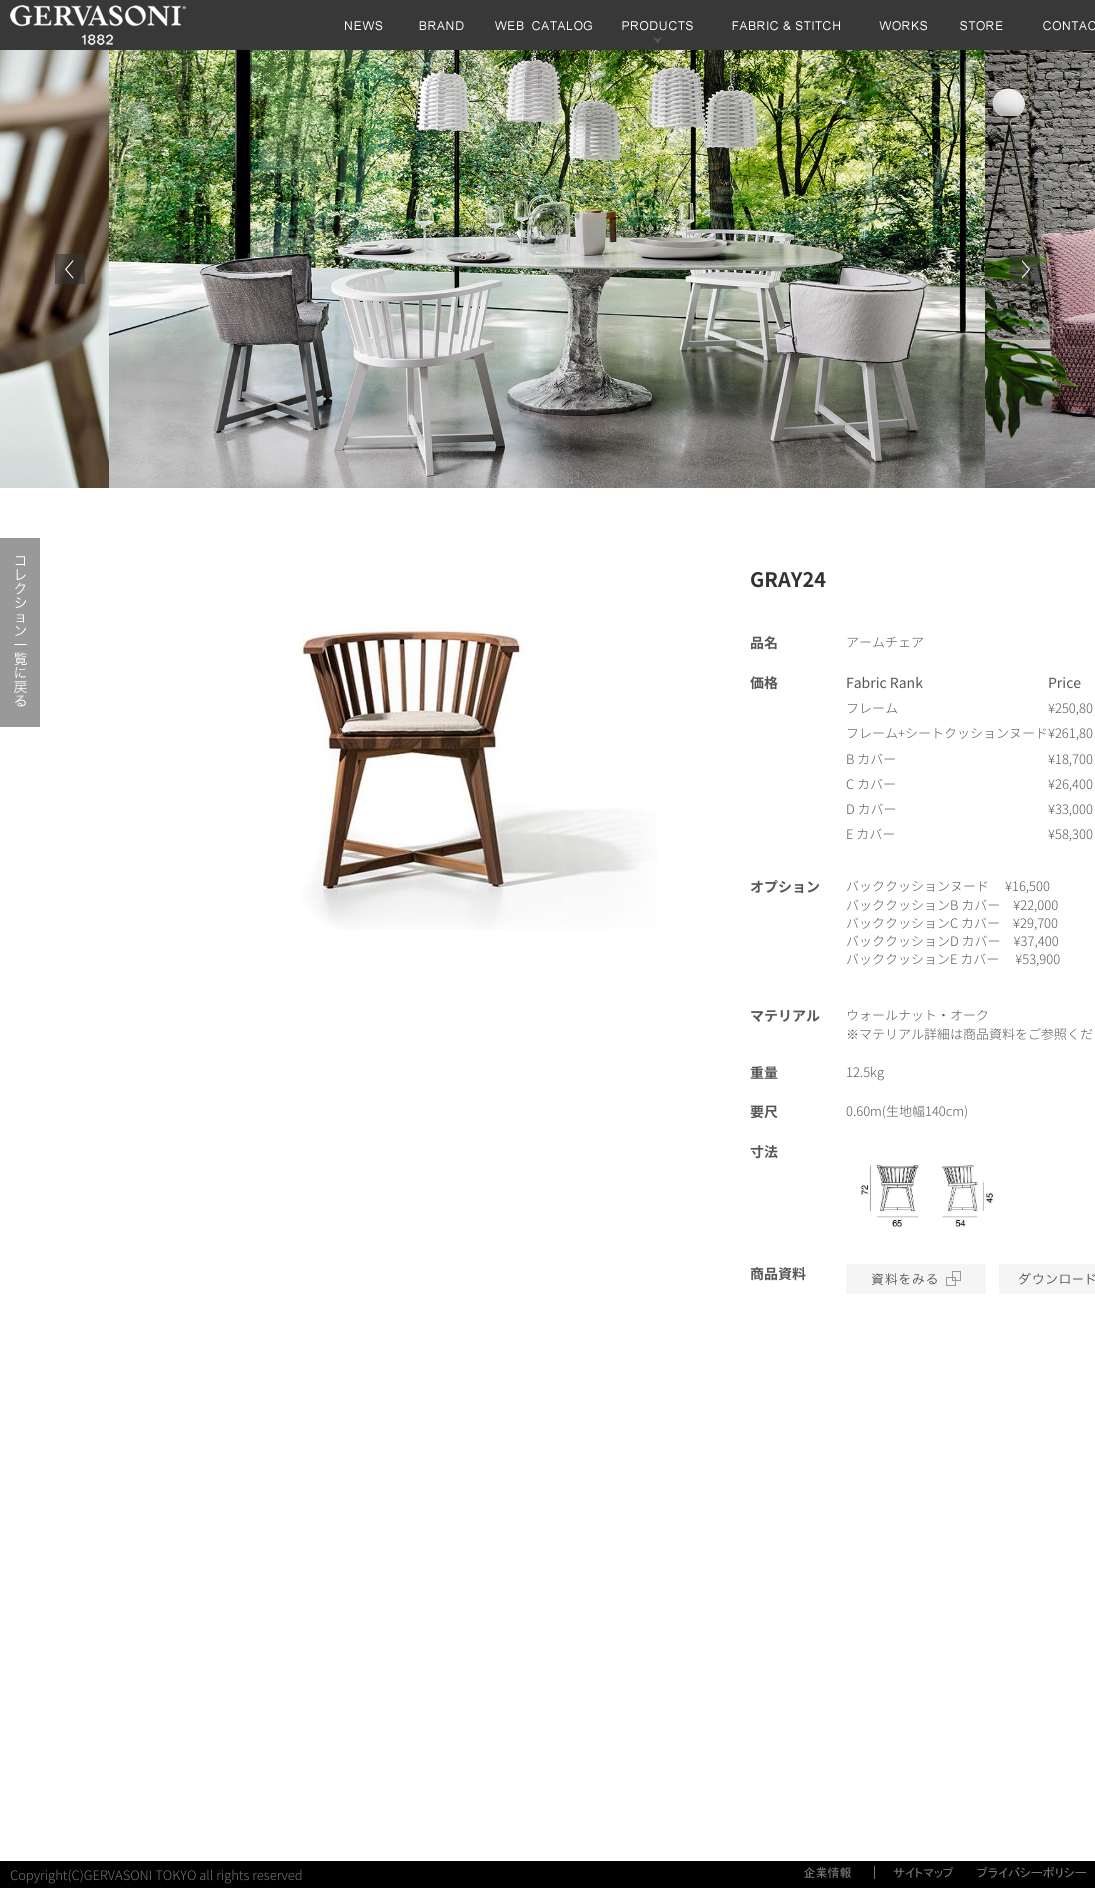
import math
import cairo

surface = cairo.ImageSurface(cairo.FORMAT_RGB24, 1095, 1888)
cr = cairo.Context(surface)
options = cairo.FontOptions()
options.set_hint_metrics(cairo.HINT_METRICS_OFF)
options.set_hint_style(cairo.HINT_STYLE_NONE)
cr.set_font_options(options)
cr.set_miter_limit(4)


def rgb(code):
    cr.set_source_rgb(*(v / 255 for v in bytes.fromhex(code[-6:])))


def image(path, x, y, w, h):
    cr.save()
    cr.set_source_surface(cairo.ImageSurface.create_from_png(path), x, y)
    cr.rectangle(x, y, w, h)
    cr.fill()
    cr.restore()


rgb("#ffffff")
cr.paint()
rgb("#383838")
cr.rectangle(0, 0, 1095, 50)
cr.fill()
image("img/1.png", 10, 5, 176, 40)
image("img/2.png", 345, 21, 38, 10)
image("img/3.png", 419, 21, 45, 9)
image("img/4.png", 495, 21, 97, 10)
image("img/5.png", 622, 21, 71, 23)
image("img/6.png", 732, 21, 108, 10)
image("img/7.png", 879, 21, 48, 10)
image("img/8.png", 960, 21, 43, 10)
image("img/9.png", 1043, 21, 52, 10)
image("img/10.png", 0, 50, 109, 438)
image("img/11.png", 109, 50, 876, 438)
image("img/12.png", 985, 50, 110, 438)
image("img/13.png", 55, 254, 30, 30)
image("img/14.png", 1010, 254, 30, 30)
image("img/15.png", 0, 538, 40, 189)
image("img/16.png", 300, 618, 357, 312)
image("img/17.png", 860, 1164, 135, 63)
image("img/18.png", 846, 1264, 140, 30)
image("img/19.png", 999, 1264, 96, 30)
rgb("#000000")
cr.rectangle(0, 1861, 1095, 27)
cr.fill()
rgb("#777777")
cr.rectangle(874, 1866, 1, 13)
cr.fill()
image("img/20.png", 804, 1867, 47, 12)
image("img/21.png", 893, 1866, 61, 12)
image("img/22.png", 977, 1866, 109, 12)
cr.select_font_face("Noto Sans JP", cairo.FONT_SLANT_NORMAL, cairo.FONT_WEIGHT_BOLD)
cr.set_font_size(20)
rgb("#323232")
cr.move_to(750, 587)
cr.show_text("GRAY24")
cr.set_font_size(14)
rgb("#555555")
cr.move_to(750, 648)
cr.show_text("品名")
cr.select_font_face("Noto Sans JP Light")
cr.set_font_size(13)
cr.move_to(846, 647)
cr.show_text("アームチェア")
cr.select_font_face("Noto Sans JP", cairo.FONT_SLANT_NORMAL, cairo.FONT_WEIGHT_BOLD)
cr.set_font_size(14)
cr.move_to(750, 688)
cr.show_text("価格")
cr.select_font_face("Noto Sans JP")
cr.move_to(846, 688)
cr.show_text("Fabric Rank")
cr.move_to(1048, 688)
cr.show_text("Price")
cr.select_font_face("Noto Sans JP Light")
cr.set_font_size(13)
for x, y, s in [
    (846, 713, "フレーム"),
    (1048, 713, "¥250,80"),
    (846, 738, "フレーム+シートクッションヌード¥261,80"),
    (846, 764, "B カバー"),
    (1048, 764, "¥18,700"),
    (846, 789, "C カバー"),
    (1048, 789, "¥26,400"),
    (846, 814, "D カバー"),
    (1048, 814, "¥33,000"),
    (846, 839, "E カバー"),
    (1048, 839, "¥58,300"),
]:
    cr.move_to(x, y)
    cr.show_text(s)
cr.select_font_face("Noto Sans JP", cairo.FONT_SLANT_NORMAL, cairo.FONT_WEIGHT_BOLD)
cr.set_font_size(14)
cr.move_to(750, 892)
cr.show_text("オプション")
cr.select_font_face("Noto Sans JP Light")
cr.set_font_size(13)
for x, y, s in [
    (846, 891, "バッククッションヌード"),
    (1005, 891, "¥16,500"),
    (846, 910, "バッククッションB カバー　¥22,000"),
    (846, 928, "バッククッションC カバー　¥29,700"),
    (846, 946, "バッククッションD カバー　¥37,400"),
    (846, 964, "バッククッションE カバー　 ¥53,900"),
]:
    cr.move_to(x, y)
    cr.show_text(s)
cr.select_font_face("Noto Sans JP", cairo.FONT_SLANT_NORMAL, cairo.FONT_WEIGHT_BOLD)
cr.set_font_size(14)
cr.move_to(750, 1021)
cr.show_text("マテリアル")
cr.select_font_face("Noto Sans JP Light")
cr.set_font_size(13)
cr.move_to(846, 1020)
cr.show_text("ウォールナット・オーク")
cr.select_font_face("WenQuanYi Zen Hei Medium")
cr.move_to(846, 1039)
cr.show_text("※")
cr.select_font_face("Noto Sans JP Light")
cr.move_to(859, 1039)
cr.show_text("マテリアル詳細は商品資料をご参照くだ")
cr.select_font_face("Noto Sans JP", cairo.FONT_SLANT_NORMAL, cairo.FONT_WEIGHT_BOLD)
cr.set_font_size(14)
cr.move_to(750, 1078)
cr.show_text("重量")
cr.select_font_face("Noto Sans JP Light")
cr.set_font_size(13)
cr.move_to(846, 1077)
cr.show_text("12.5kg")
cr.select_font_face("Noto Sans JP", cairo.FONT_SLANT_NORMAL, cairo.FONT_WEIGHT_BOLD)
cr.set_font_size(14)
cr.move_to(750, 1117)
cr.show_text("要尺")
cr.select_font_face("Noto Sans JP Light")
cr.set_font_size(13)
cr.move_to(846, 1116)
cr.show_text("0.60m(生地幅140cm)")
cr.select_font_face("Noto Sans JP", cairo.FONT_SLANT_NORMAL, cairo.FONT_WEIGHT_BOLD)
cr.set_font_size(14)
cr.move_to(750, 1157)
cr.show_text("寸法")
cr.move_to(750, 1279)
cr.show_text("商品資料")
cr.select_font_face("Noto Sans JP Light")
cr.set_font_size(13)
rgb("#777777")
cr.move_to(10, 1880)
cr.show_text("Copyright(C)GERVASONI TOKYO all rights reserved")
surface.write_to_png("page.png")
